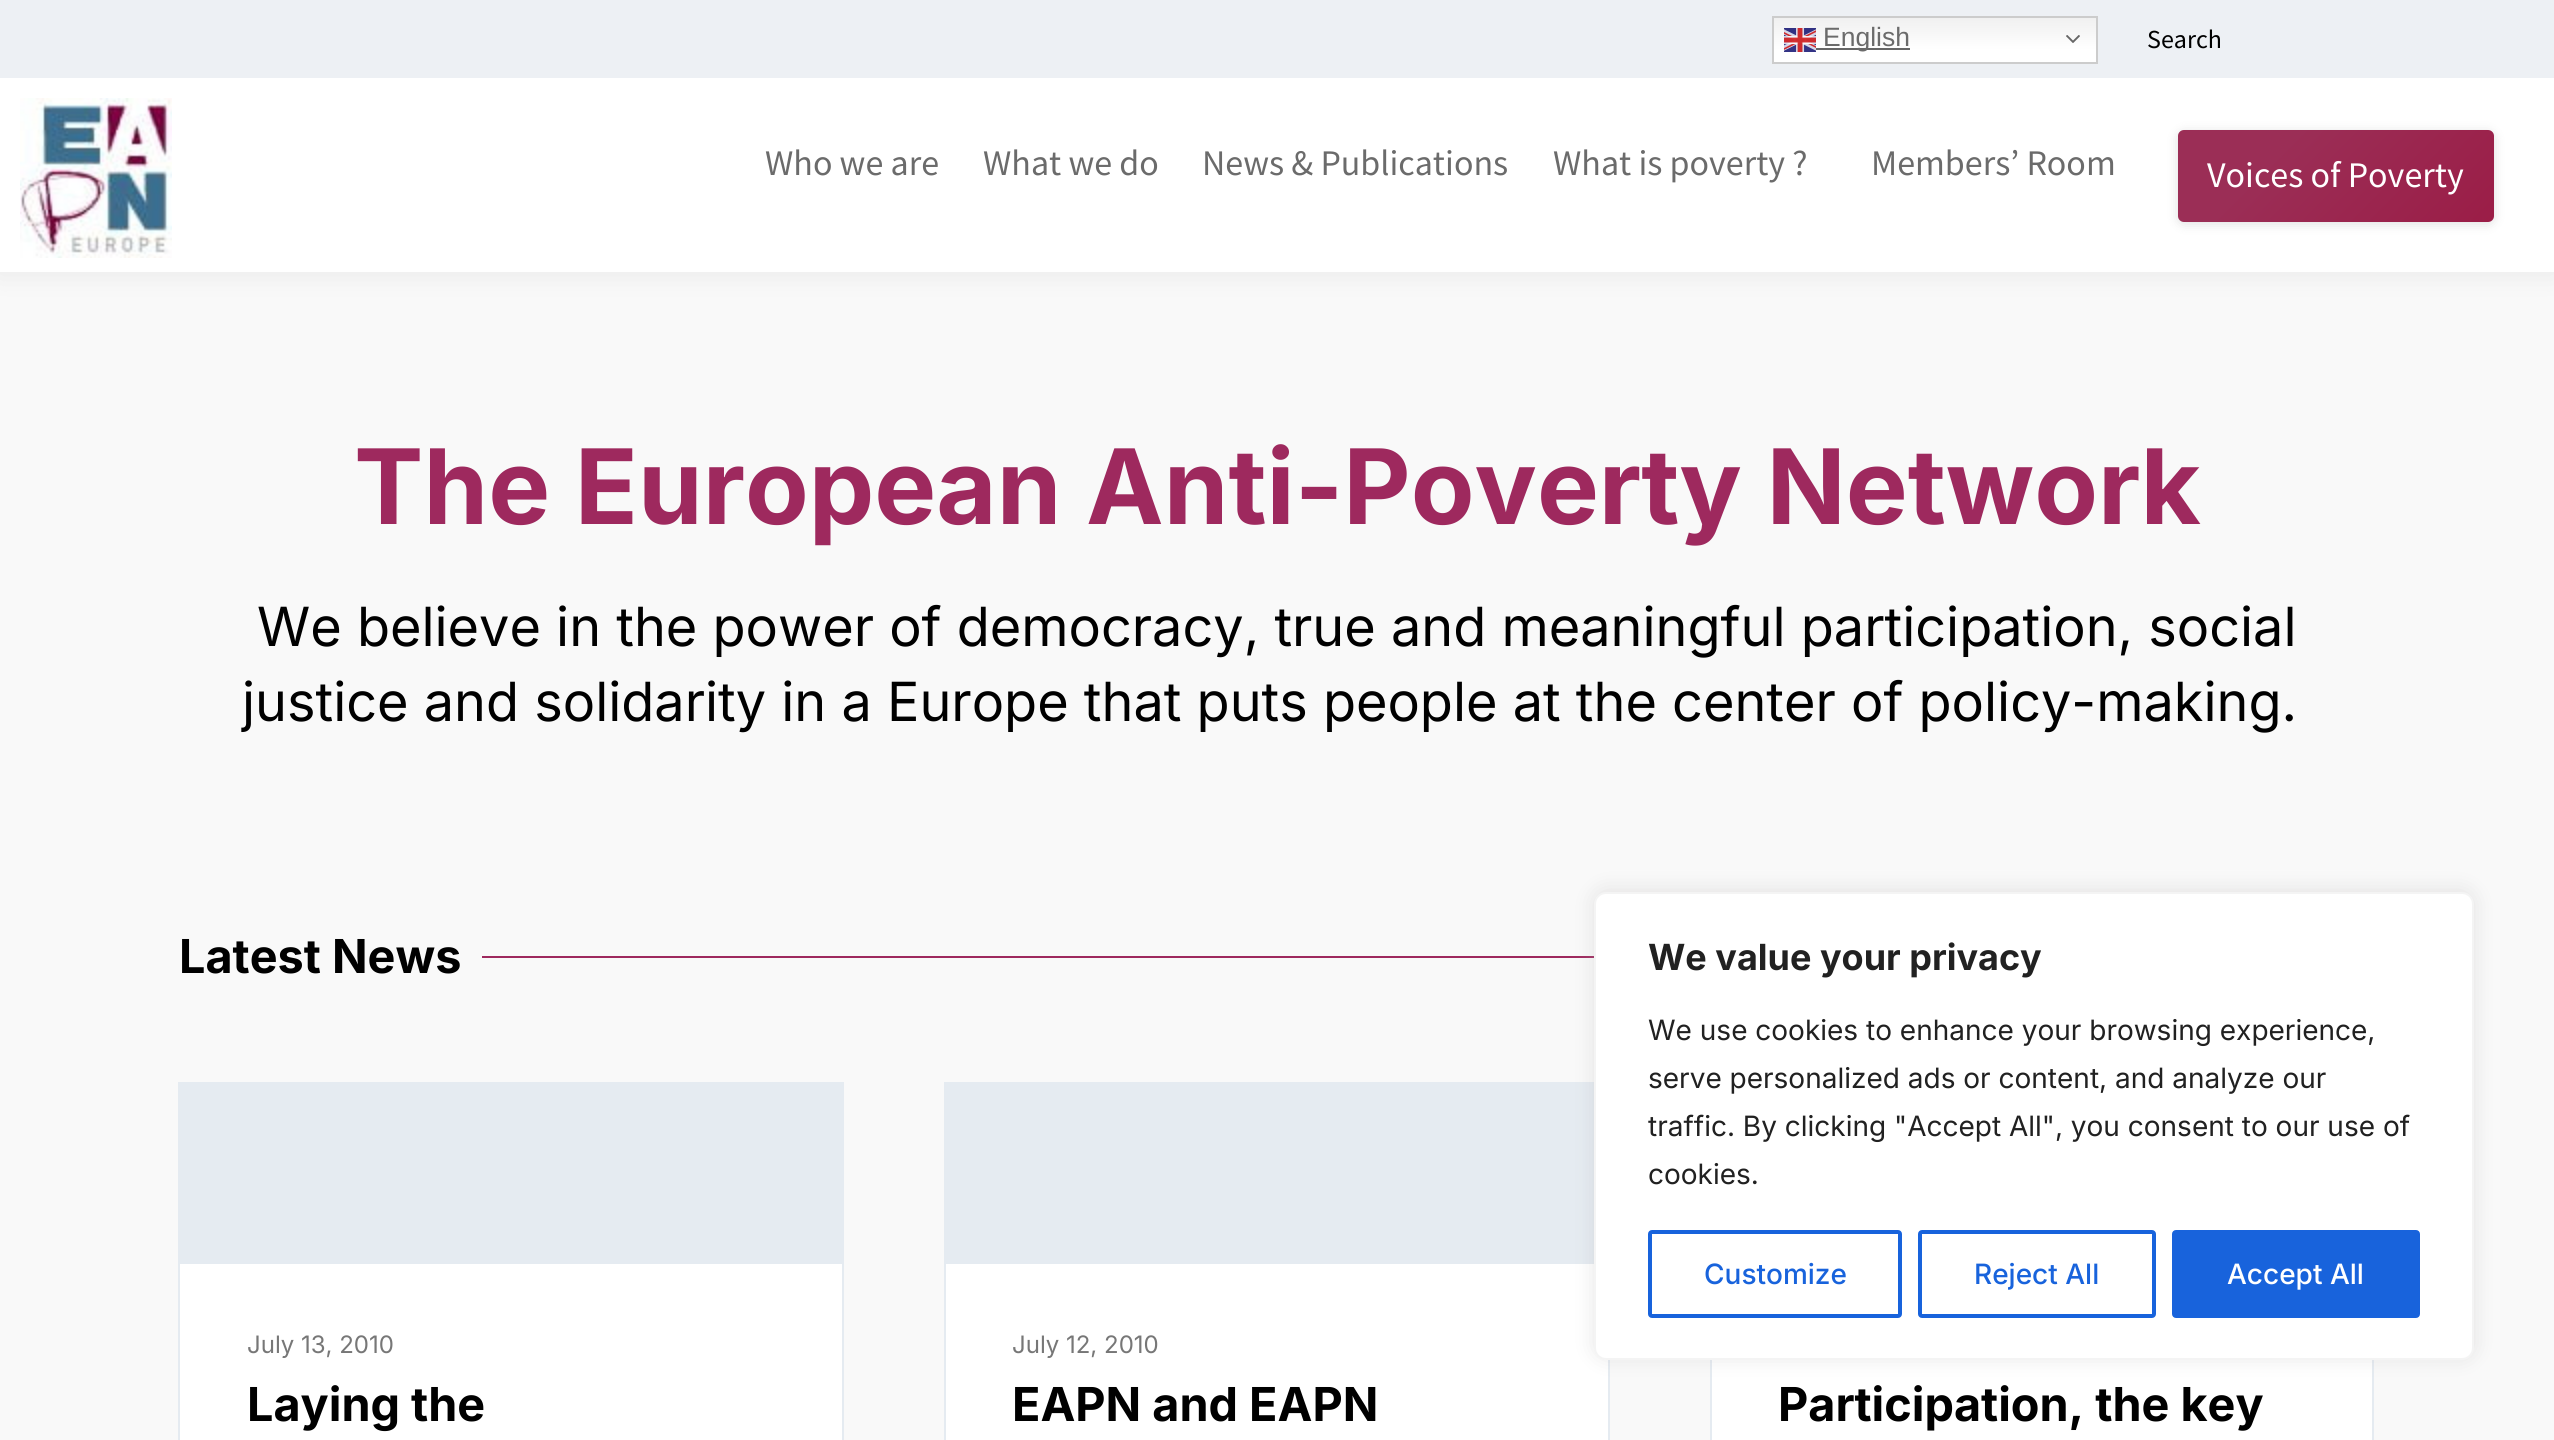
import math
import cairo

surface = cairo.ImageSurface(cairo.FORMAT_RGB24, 2554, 1440)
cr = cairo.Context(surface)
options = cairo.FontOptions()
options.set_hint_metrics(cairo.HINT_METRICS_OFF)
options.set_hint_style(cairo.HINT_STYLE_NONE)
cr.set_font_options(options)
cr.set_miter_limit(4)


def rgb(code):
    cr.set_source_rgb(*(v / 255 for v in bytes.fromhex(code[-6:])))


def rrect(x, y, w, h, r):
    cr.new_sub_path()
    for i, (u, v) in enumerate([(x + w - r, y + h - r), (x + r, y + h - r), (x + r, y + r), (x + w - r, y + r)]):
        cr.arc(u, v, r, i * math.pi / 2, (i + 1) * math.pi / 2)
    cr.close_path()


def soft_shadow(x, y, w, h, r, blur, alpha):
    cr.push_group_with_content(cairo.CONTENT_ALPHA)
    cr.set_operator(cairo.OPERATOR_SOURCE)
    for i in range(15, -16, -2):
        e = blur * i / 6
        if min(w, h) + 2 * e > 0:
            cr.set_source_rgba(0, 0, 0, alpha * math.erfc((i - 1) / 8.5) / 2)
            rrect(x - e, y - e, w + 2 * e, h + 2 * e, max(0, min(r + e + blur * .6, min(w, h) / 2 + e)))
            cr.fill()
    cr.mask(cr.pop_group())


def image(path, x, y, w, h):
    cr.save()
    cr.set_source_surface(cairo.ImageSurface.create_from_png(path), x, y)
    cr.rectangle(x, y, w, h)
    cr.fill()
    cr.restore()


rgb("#f9f9f9")
cr.paint()
rgb("#000000")
soft_shadow(-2, -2, 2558, 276, 0, 15, 0.07)
rgb("#ffffff")
cr.rectangle(0, 78, 2554, 194)
cr.fill()
rgb("#edf0f4")
cr.rectangle(0, 0, 2554, 78)
cr.fill()
gradient = cairo.LinearGradient(1935, 16, 1935, 64)
gradient.add_color_stop_rgba(0, 0.937, 0.937, 0.937, 1)
gradient.add_color_stop_rgba(0.7, 1, 1, 1, 1)
cr.set_source(gradient)
cr.rectangle(1774, 18, 322, 44)
cr.fill()
cr.rectangle(1773, 17, 324, 46)
rgb("#cccccc")
cr.stroke()
image("img/1.png", 1784, 28, 32, 24)
rgb("#666666")
cr.rectangle(1816, 48, 94, 2)
cr.fill()
image("img/2.png", 2066, 35, 14, 8)
image("img/3.png", 20, 98, 152, 160)
rgb("#000000")
soft_shadow(2178, 132, 316, 92, 6, 6, 0.12)
gradient = cairo.LinearGradient(2234, 74, 2438, 278)
gradient.add_color_stop_rgba(0.3, 0.608, 0.18, 0.337, 1)
gradient.add_color_stop_rgba(1, 0.608, 0.114, 0.278, 1)
cr.set_source(gradient)
rrect(2178, 130, 316, 92, 6)
cr.fill()
rgb("#9e295e")
cr.rectangle(482, 956, 1112, 2)
cr.fill()
rgb("#ffffff")
cr.rectangle(180, 1264, 662, 176)
cr.fill()
cr.rectangle(179, 1083, 664, 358)
rgb("#e5ebf1")
cr.stroke()
cr.rectangle(180, 1084, 662, 180)
cr.fill()
rgb("#ffffff")
cr.rectangle(946, 1264, 662, 176)
cr.fill()
cr.rectangle(945, 1083, 664, 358)
rgb("#e5ebf1")
cr.stroke()
cr.rectangle(946, 1084, 648, 180)
cr.fill()
rgb("#ffffff")
cr.rectangle(1712, 1360, 660, 80)
cr.fill()
cr.rectangle(1711, 1083, 662, 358)
rgb("#e5ebf1")
cr.stroke()
rgb("#acabab")
soft_shadow(1594, 890, 880, 468, 12, 10, 0.3)
rgb("#ffffff")
rrect(1595, 893, 878, 466, 11)
cr.fill_preserve()
rgb("#f4f4f4")
cr.stroke()
rrect(1650, 1232, 250, 84, 2)
rgb("#1863dc")
cr.set_line_width(4)
cr.stroke()
rrect(1920, 1232, 234, 84, 2)
cr.stroke()
rrect(2174, 1232, 244, 84, 2)
cr.fill_preserve()
cr.stroke()
cr.select_font_face("Liberation Sans")
cr.set_font_size(26.5)
rgb("#6b6b6b")
cr.move_to(1823, 46)
cr.show_text("English")
cr.select_font_face("Source Sans Pro")
cr.set_font_size(26)
rgb("#000000")
cr.move_to(2147, 48)
cr.show_text("Search")
cr.set_font_size(36)
rgb("#6b6b6b")
for x, y, s in [
    (765, 175, "Who we are"),
    (983, 175, "What we do"),
    (1202, 175, "News & Publications"),
    (1553, 175, "What is poverty ?"),
    (1871, 175, "Members’ Room"),
]:
    cr.move_to(x, y)
    cr.show_text(s)
rgb("#ffffff")
cr.move_to(2207, 187)
cr.show_text("Voices of Poverty")
cr.select_font_face("Inter", cairo.FONT_SLANT_NORMAL, cairo.FONT_WEIGHT_BOLD)
cr.set_font_size(104)
rgb("#9e295e")
cr.move_to(354, 524)
cr.show_text("The European Anti-Poverty Network")
cr.select_font_face("Inter")
cr.set_font_size(54)
rgb("#000000")
cr.move_to(257, 646)
cr.show_text("We believe in the power of democracy, true and meaningful participation, social")
cr.move_to(242, 721)
cr.show_text("justice and solidarity in a Europe that puts people at the center of policy-making.")
cr.select_font_face("Inter", cairo.FONT_SLANT_NORMAL, cairo.FONT_WEIGHT_BOLD)
cr.set_font_size(46.75)
cr.move_to(179, 973)
cr.show_text("Latest News")
cr.select_font_face("Inter")
cr.set_font_size(24)
rgb("#777777")
cr.move_to(247, 1353)
cr.show_text("July 13, 2010")
cr.select_font_face("Inter", cairo.FONT_SLANT_NORMAL, cairo.FONT_WEIGHT_BOLD)
cr.set_font_size(46.75)
rgb("#000000")
cr.move_to(247, 1421)
cr.show_text("Laying the")
cr.select_font_face("Inter")
cr.set_font_size(24)
rgb("#777777")
cr.move_to(1012, 1353)
cr.show_text("July 12, 2010")
cr.select_font_face("Inter", cairo.FONT_SLANT_NORMAL, cairo.FONT_WEIGHT_BOLD)
cr.set_font_size(46.75)
rgb("#000000")
cr.move_to(1012, 1421)
cr.show_text("EAPN and EAPN")
cr.move_to(1778, 1421)
cr.show_text("Participation, the key")
cr.set_font_size(36)
rgb("#212121")
cr.move_to(1648, 970)
cr.show_text("We value your privacy")
cr.select_font_face("Inter")
cr.set_font_size(28)
for x, y, s in [
    (1648, 1040, "We use cookies to enhance your browsing experience,"),
    (1648, 1088, "serve personalized ads or content, and analyze our"),
    (1648, 1136, "traffic. By clicking \"Accept All\", you consent to our use of"),
    (1648, 1184, "cookies."),
]:
    cr.move_to(x, y)
    cr.show_text(s)
cr.select_font_face("Inter Medium")
rgb("#1863dc")
cr.move_to(1704, 1284)
cr.show_text("Customize")
cr.move_to(1974, 1284)
cr.show_text("Reject All")
rgb("#ffffff")
cr.move_to(2227, 1284)
cr.show_text("Accept All")
surface.write_to_png("page.png")
